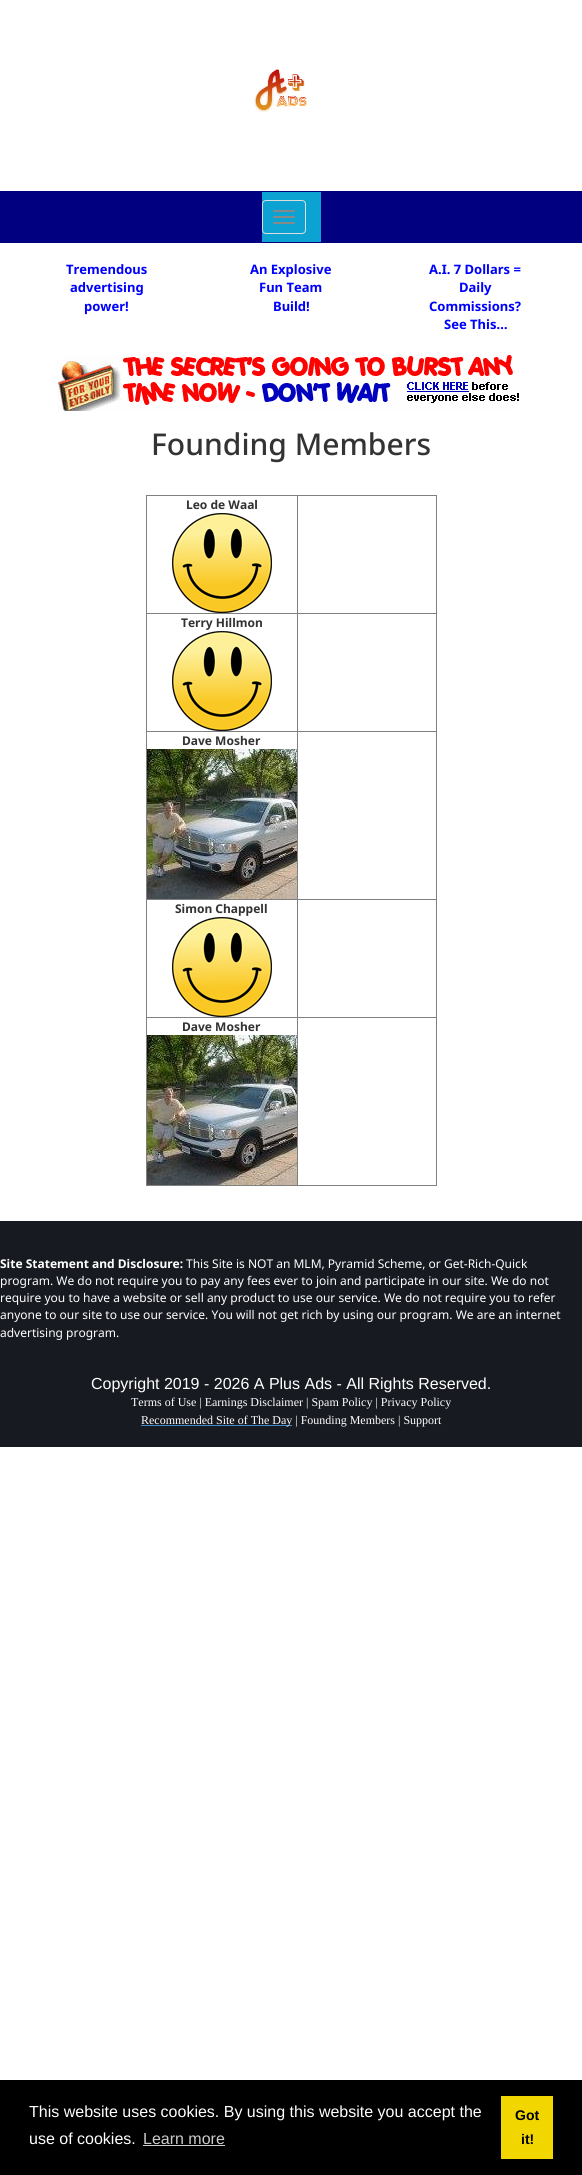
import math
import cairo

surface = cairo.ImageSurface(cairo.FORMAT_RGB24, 582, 2175)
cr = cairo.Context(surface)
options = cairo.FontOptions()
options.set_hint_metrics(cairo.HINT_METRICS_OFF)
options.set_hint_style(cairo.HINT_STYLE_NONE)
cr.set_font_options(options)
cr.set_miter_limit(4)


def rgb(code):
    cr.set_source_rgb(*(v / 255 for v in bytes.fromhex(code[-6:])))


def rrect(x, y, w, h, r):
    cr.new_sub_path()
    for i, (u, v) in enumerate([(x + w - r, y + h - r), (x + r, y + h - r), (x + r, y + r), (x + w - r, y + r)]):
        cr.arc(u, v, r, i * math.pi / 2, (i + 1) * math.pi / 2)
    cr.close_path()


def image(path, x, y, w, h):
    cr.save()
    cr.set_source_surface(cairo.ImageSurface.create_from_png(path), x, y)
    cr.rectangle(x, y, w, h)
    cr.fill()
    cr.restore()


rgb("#ffffff")
cr.paint()
image("img/1.png", 254, 69, 53, 44)
rgb("#000080")
cr.rectangle(0, 191, 582, 52)
cr.fill()
rgb("#0ca3d2")
cr.rectangle(262, 192, 59, 50)
cr.fill()
rrect(262.5, 200.5, 43, 33, 3.5)
rgb("#dddddd")
cr.set_line_width(1)
cr.stroke()
rgb("#888888")
rrect(273, 210, 22, 2, 1)
cr.fill()
rrect(273, 216, 22, 2, 1)
cr.fill()
rrect(273, 222, 22, 2, 1)
cr.fill()
image("img/2.png", 57, 355, 462, 56)
for x, y, w, h, color in [
    (146, 495, 291, 1, "#808080"),
    (436, 495, 1, 691, "#808080"),
    (146, 1185, 291, 1, "#808080"),
    (146, 495, 1, 691, "#808080"),
]:
    rgb(color)
    cr.rectangle(x, y, w, h)
    cr.fill()
image("img/3.png", 172, 513, 100, 100)
for x, y, w, h, color in [
    (297, 613, 140, 1, "#808080"),
    (297, 731, 140, 1, "#808080"),
    (297, 899, 140, 1, "#808080"),
    (297, 1017, 140, 1, "#808080"),
    (297, 1017, 1, 169, "#808080"),
    (146, 1017, 152, 1, "#808080"),
    (297, 899, 1, 119, "#808080"),
    (146, 899, 152, 1, "#808080"),
    (297, 731, 1, 169, "#808080"),
    (146, 731, 152, 1, "#808080"),
    (297, 613, 1, 119, "#808080"),
    (146, 613, 152, 1, "#808080"),
    (297, 495, 1, 119, "#808080"),
]:
    rgb(color)
    cr.rectangle(x, y, w, h)
    cr.fill()
image("img/3.png", 172, 631, 100, 100)
image("img/4.png", 147, 749, 150, 150)
image("img/3.png", 172, 917, 100, 100)
image("img/4.png", 147, 1035, 150, 150)
for x, y, w, h, color in [
    (0, 1221, 582, 226, "#181a22"),
    (141, 1425, 151, 1, "#428bca"),
    (0, 2080, 582, 95, "#000000"),
    (143, 2145, 82, 1, "#cccccc"),
    (501, 2096, 52, 63, "#f1d600"),
]:
    rgb(color)
    cr.rectangle(x, y, w, h)
    cr.fill()
cr.select_font_face("Noto Sans", cairo.FONT_SLANT_NORMAL, cairo.FONT_WEIGHT_BOLD)
cr.set_font_size(13)
rgb("#0000ff")
for x, y, s in [
    (66, 274, "Tremendous"),
    (70, 292, "advertising"),
    (84, 311, "power!"),
    (250, 274, "An Explosive"),
    (259, 292, "Fun Team"),
    (273, 311, "Build!"),
    (429, 274, "A.I. 7 Dollars ="),
    (459, 292, "Daily"),
    (429, 311, "Commissions?"),
    (444, 329, "See This…"),
]:
    cr.move_to(x, y)
    cr.show_text(s)
cr.select_font_face("Noto Sans Medium")
cr.set_font_size(30)
rgb("#333333")
cr.move_to(151, 455)
cr.show_text("Founding Members")
cr.select_font_face("Noto Sans", cairo.FONT_SLANT_NORMAL, cairo.FONT_WEIGHT_BOLD)
cr.set_font_size(12)
for x, y, s in [
    (186, 509, "Leo de Waal"),
    (181, 627, "Terry Hillmon"),
    (182, 745, "Dave Mosher"),
    (175, 913, "Simon Chappell"),
    (182, 1031, "Dave Mosher"),
]:
    cr.move_to(x, y)
    cr.show_text(s)
rgb("#ffffff")
cr.move_to(0, 1268)
cr.show_text("Site Statement and Disclosure:")
cr.select_font_face("Noto Sans")
for x, y, s in [
    (186, 1268, "This Site is NOT an MLM, Pyramid Scheme, or Get-Rich-Quick"),
    (0, 1285, "program. We do not require you to pay any fees ever to join and participate in our site. We do not"),
    (0, 1302, "require you to have a website or sell any product to use our service. We do not require you to refer"),
    (0, 1319, "anyone to our site to use our service. You will not get rich by using our program. We are an internet"),
    (0, 1337, "advertising program."),
]:
    cr.move_to(x, y)
    cr.show_text(s)
cr.select_font_face("Liberation Sans")
cr.set_font_size(16)
cr.move_to(91, 1389)
cr.show_text("Copyright 2019 - 2026 A Plus Ads - All Rights Reserved.")
cr.select_font_face("Liberation Serif")
cr.set_font_size(12)
cr.move_to(131, 1406)
cr.show_text("Terms of Use | Earnings Disclaimer | Spam Policy | Privacy Policy")
cr.move_to(141, 1424)
cr.show_text("Recommended Site of The Day | Founding Members | Support")
cr.select_font_face("Liberation Sans")
cr.set_font_size(16)
cr.move_to(29, 2117)
cr.show_text("This website uses cookies. By using this website you accept the")
cr.move_to(29, 2144)
cr.show_text("use of cookies.")
rgb("#cccccc")
cr.move_to(143, 2144)
cr.show_text("Learn more")
cr.select_font_face("Liberation Sans", cairo.FONT_SLANT_NORMAL, cairo.FONT_WEIGHT_BOLD)
cr.set_font_size(14)
rgb("#000000")
cr.move_to(515, 2120)
cr.show_text("Got")
cr.move_to(521, 2144)
cr.show_text("it!")
surface.write_to_png("page.png")
